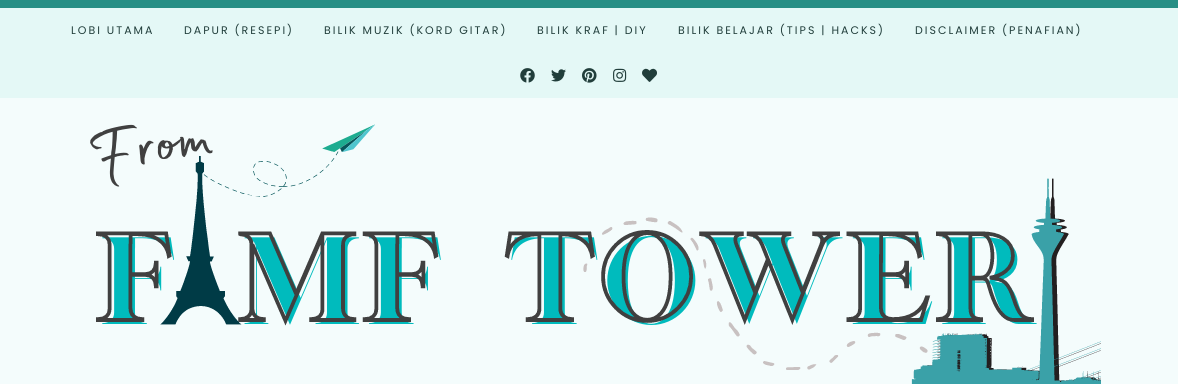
import math
import cairo

surface = cairo.ImageSurface(cairo.FORMAT_RGB24, 1178, 384)
cr = cairo.Context(surface)
options = cairo.FontOptions()
options.set_hint_metrics(cairo.HINT_METRICS_OFF)
options.set_hint_style(cairo.HINT_STYLE_NONE)
cr.set_font_options(options)
cr.set_miter_limit(4)


def rgb(code):
    cr.set_source_rgb(*(v / 255 for v in bytes.fromhex(code[-6:])))


def tracked(x, y, s, letter, word):
    cr.move_to(x, y)
    for ch in s:
        cr.show_text(ch)
        cr.rel_move_to(letter + word * (ch == ' '), 0)


def image(path, x, y, w, h):
    cr.save()
    cr.set_source_surface(cairo.ImageSurface.create_from_png(path), x, y)
    cr.rectangle(x, y, w, h)
    cr.fill()
    cr.restore()


rgb("#f4fcfc")
cr.paint()
rgb("#e4f8f6")
cr.rectangle(0, 8, 1178, 90)
cr.fill()
rgb("#268f85")
cr.rectangle(0, 0, 1178, 8)
cr.fill()
image("img/1.png", 520, 68, 15, 15)
image("img/2.png", 551, 69, 15, 13)
image("img/3.png", 582, 68, 15, 15)
image("img/4.png", 613, 68, 14, 14)
image("img/5.png", 642, 68, 15, 14)
image("img/6.png", 90, 124, 1011, 260)
cr.select_font_face("Poppins")
cr.set_font_size(11)
rgb("#213e3b")
for x, y, s in [
    (71, 34, "LOBI UTAMA"),
    (184, 34, "DAPUR (RESEPI)"),
    (324, 34, "BILIK MUZIK (KORD GITAR)"),
    (537, 34, "BILIK KRAF | DIY"),
    (678, 34, "BILIK BELAJAR (TIPS | HACKS)"),
    (915, 34, "DISCLAIMER (PENAFIAN)"),
]:
    tracked(x, y, s, 2, 0)
surface.write_to_png("page.png")
